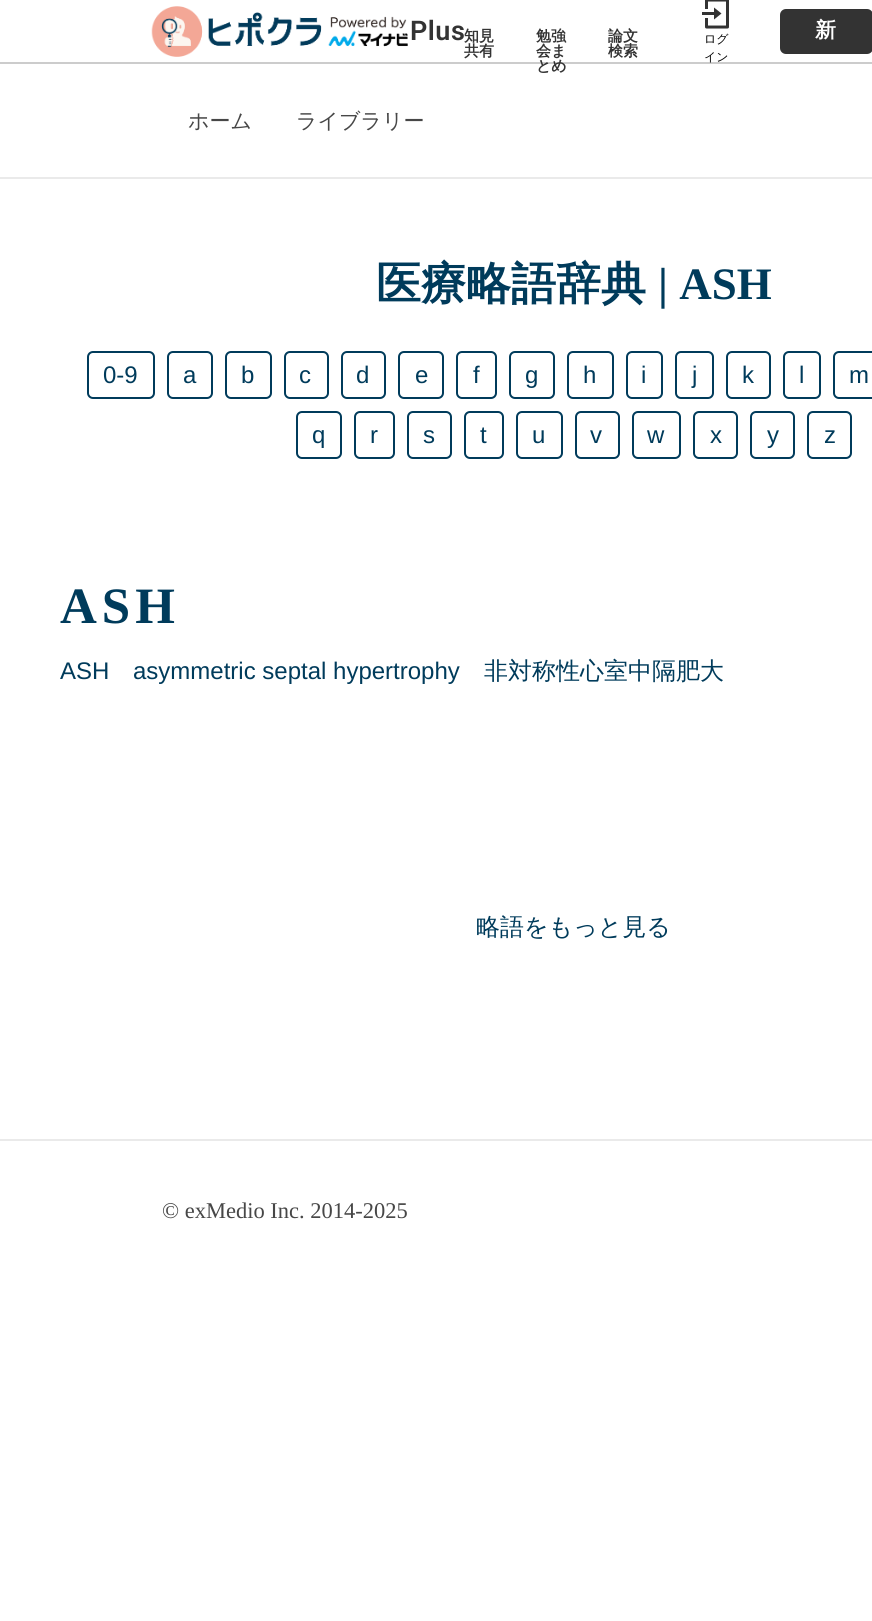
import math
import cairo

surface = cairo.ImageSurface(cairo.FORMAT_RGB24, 872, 1621)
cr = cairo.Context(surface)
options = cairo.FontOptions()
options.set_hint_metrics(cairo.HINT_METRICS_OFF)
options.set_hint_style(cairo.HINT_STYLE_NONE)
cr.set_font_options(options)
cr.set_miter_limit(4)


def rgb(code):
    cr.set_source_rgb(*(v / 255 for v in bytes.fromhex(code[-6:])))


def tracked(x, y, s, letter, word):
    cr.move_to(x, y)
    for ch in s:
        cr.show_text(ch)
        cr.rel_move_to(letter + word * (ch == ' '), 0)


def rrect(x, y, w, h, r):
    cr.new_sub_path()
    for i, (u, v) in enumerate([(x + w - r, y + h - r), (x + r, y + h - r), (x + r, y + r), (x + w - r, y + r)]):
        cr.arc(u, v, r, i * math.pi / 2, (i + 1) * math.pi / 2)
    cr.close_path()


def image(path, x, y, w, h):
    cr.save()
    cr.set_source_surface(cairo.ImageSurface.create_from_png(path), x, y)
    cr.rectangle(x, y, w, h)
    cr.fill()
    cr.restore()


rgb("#ffffff")
cr.paint()
rgb("#cccccc")
cr.rectangle(0, 62, 872, 2)
cr.fill()
image("img/1.png", 151, 6, 257, 51)
rgb("#333333")
rrect(780, 9, 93, 45, 6)
cr.fill()
image("img/2.png", 702, 0, 27, 29)
rgb("#eaeaea")
cr.rectangle(0, 177, 872, 2)
cr.fill()
rrect(88, 352, 66, 46, 5)
rgb("#003b5b")
cr.stroke()
rrect(168, 352, 44, 46, 5)
cr.stroke()
rrect(226, 352, 45, 46, 5)
cr.stroke()
rrect(285, 352, 43, 46, 5)
cr.stroke()
rrect(342, 352, 43, 46, 5)
cr.stroke()
rrect(399, 352, 44, 46, 5)
cr.stroke()
rrect(457, 352, 39, 46, 5)
cr.stroke()
rrect(510, 352, 44, 46, 5)
cr.stroke()
rrect(568, 352, 45, 46, 5)
cr.stroke()
rrect(627, 352, 35, 46, 5)
cr.stroke()
rrect(676, 352, 37, 46, 5)
cr.stroke()
rrect(727, 352, 43, 46, 5)
cr.stroke()
rrect(784, 352, 36, 46, 5)
cr.stroke()
rrect(834, 352, 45, 46, 5)
cr.stroke()
rrect(297, 412, 44, 46, 5)
cr.stroke()
rrect(355, 412, 39, 46, 5)
cr.stroke()
rrect(408, 412, 43, 46, 5)
cr.stroke()
rrect(465, 412, 38, 46, 5)
cr.stroke()
rrect(517, 412, 45, 46, 5)
cr.stroke()
rrect(576, 412, 43, 46, 5)
cr.stroke()
rrect(633, 412, 47, 46, 5)
cr.stroke()
rrect(694, 412, 43, 46, 5)
cr.stroke()
rrect(751, 412, 43, 46, 5)
cr.stroke()
rrect(808, 412, 43, 46, 5)
cr.stroke()
rgb("#eaeaea")
cr.rectangle(0, 1139, 872, 2)
cr.fill()
cr.select_font_face("Roboto SemiBold")
cr.set_font_size(27)
rgb("#333333")
tracked(410, 40, "Plus", 0.5, 0)
cr.select_font_face("WenQuanYi Zen Hei", cairo.FONT_SLANT_NORMAL, cairo.FONT_WEIGHT_BOLD)
cr.set_font_size(15)
for x, y, s in [
    (464, 41, "知見"),
    (464, 56, "共有"),
    (536, 41, "勉強"),
    (536, 56, "会ま"),
    (536, 71, "とめ"),
    (608, 41, "論文"),
    (608, 56, "検索"),
]:
    cr.move_to(x, y)
    cr.show_text(s)
cr.set_font_size(21)
rgb("#ffffff")
cr.move_to(815, 37)
cr.show_text("新")
cr.select_font_face("WenQuanYi Zen Hei Medium")
cr.set_font_size(12)
rgb("#000000")
cr.move_to(704, 43)
cr.show_text("ログ")
cr.move_to(704, 61)
cr.show_text("イン")
cr.set_font_size(21)
rgb("#474747")
cr.move_to(188, 128)
cr.show_text("ホーム")
cr.move_to(296, 128)
cr.show_text("ライブラリー")
cr.select_font_face("WenQuanYi Zen Hei", cairo.FONT_SLANT_NORMAL, cairo.FONT_WEIGHT_BOLD)
cr.set_font_size(45)
rgb("#003b5b")
cr.move_to(376, 299)
cr.show_text("医療略語辞典")
cr.select_font_face("Liberation Serif", cairo.FONT_SLANT_NORMAL, cairo.FONT_WEIGHT_BOLD)
cr.move_to(658, 299)
cr.show_text("| ASH")
cr.select_font_face("Liberation Sans")
cr.set_font_size(24)
for x, y, s in [
    (103, 383, "0-9"),
    (183, 383, "a"),
    (241, 383, "b"),
    (299, 383, "c"),
    (356, 383, "d"),
    (415, 383, "e"),
    (473, 383, "f"),
    (525, 383, "g"),
    (583, 383, "h"),
    (641, 383, "i"),
    (692, 383, "j"),
    (742, 383, "k"),
    (799, 383, "l"),
    (849, 383, "m"),
    (312, 443, "q"),
    (370, 443, "r"),
    (423, 443, "s"),
    (480, 443, "t"),
    (532, 443, "u"),
    (590, 443, "v"),
    (647, 443, "w"),
    (710, 443, "x"),
    (767, 443, "y"),
    (824, 443, "z"),
]:
    cr.move_to(x, y)
    cr.show_text(s)
cr.select_font_face("Liberation Serif", cairo.FONT_SLANT_NORMAL, cairo.FONT_WEIGHT_BOLD)
cr.set_font_size(51)
tracked(60, 623, "ASH", 5, 0)
cr.select_font_face("Liberation Sans")
cr.set_font_size(24)
cr.move_to(60, 679)
cr.show_text("ASH")
cr.move_to(133, 679)
cr.show_text("asymmetric septal hypertrophy")
cr.select_font_face("WenQuanYi Zen Hei Medium")
cr.move_to(484, 679)
cr.show_text("非対称性心室中隔肥大")
cr.move_to(476, 935)
cr.show_text("略語をもっと見る")
cr.select_font_face("Liberation Serif")
cr.set_font_size(22.5)
rgb("#474747")
cr.move_to(162, 1218)
cr.show_text("© exMedio Inc. 2014-2025")
surface.write_to_png("page.png")
